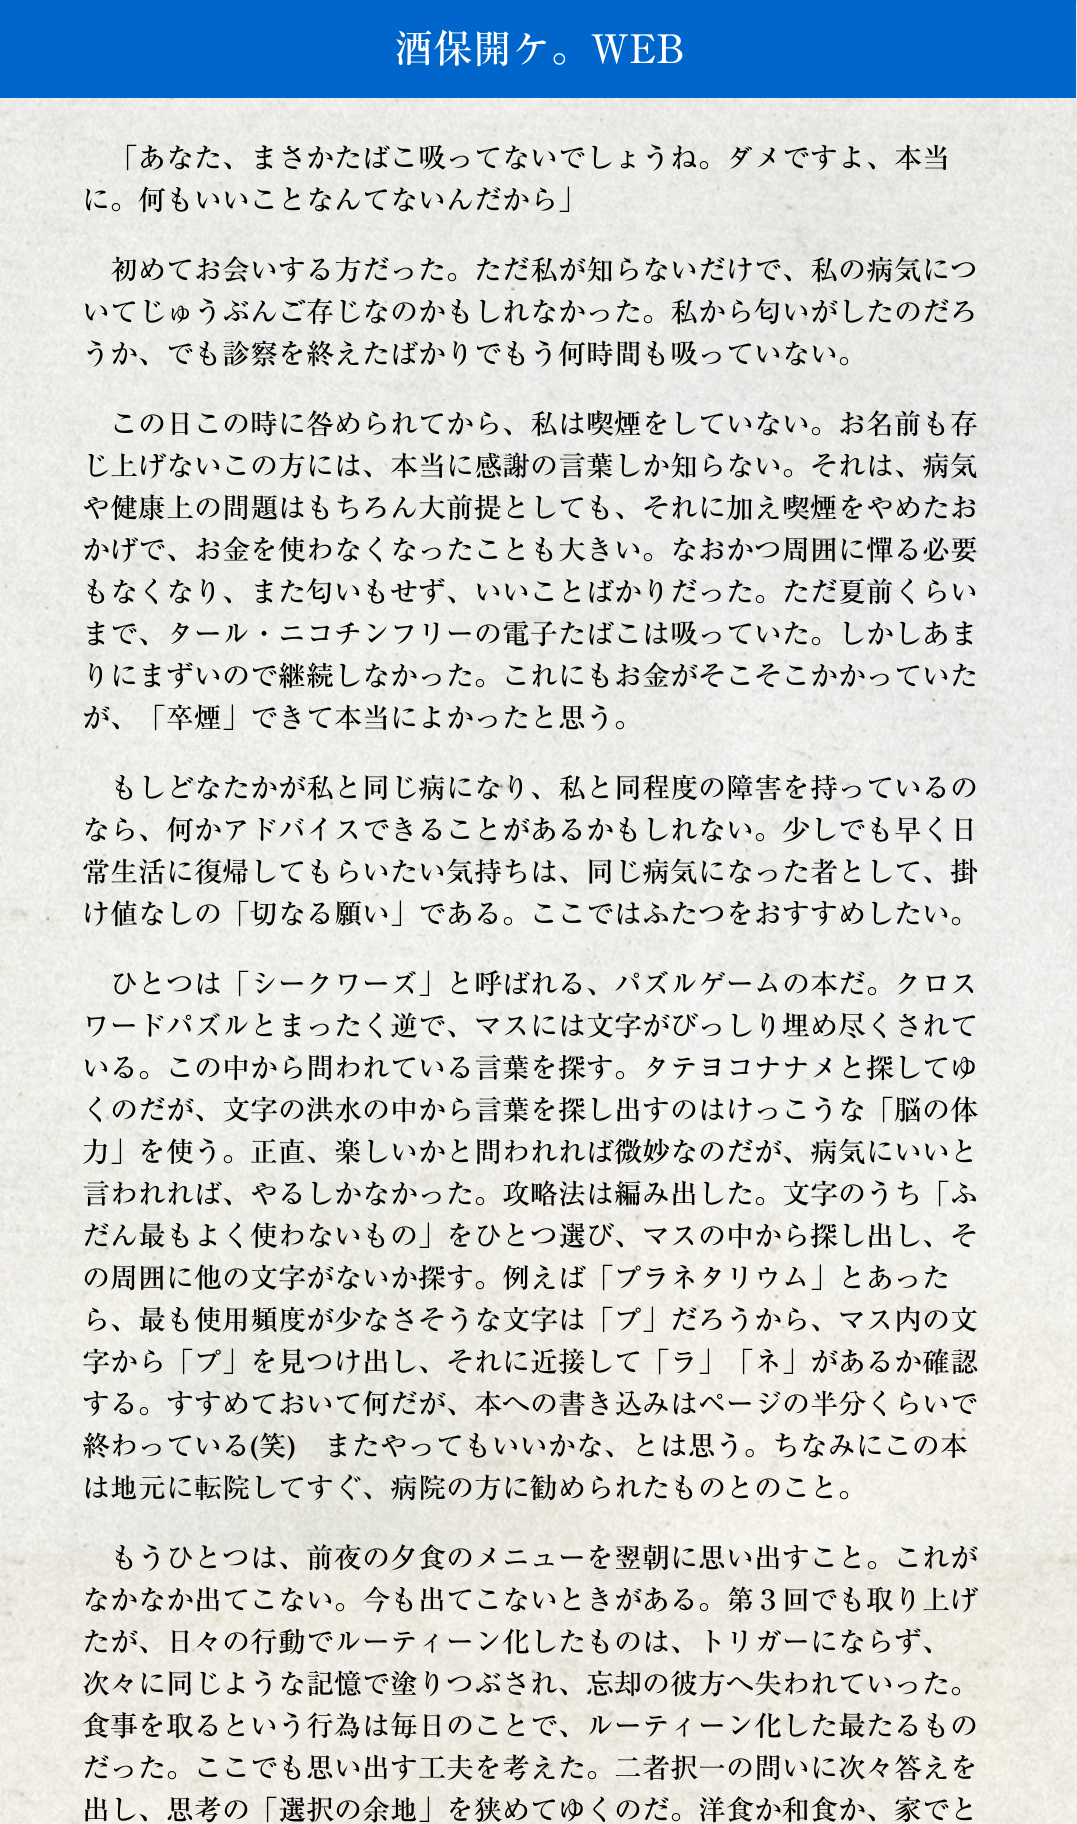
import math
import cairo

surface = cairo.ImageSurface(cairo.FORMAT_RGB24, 1077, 1824)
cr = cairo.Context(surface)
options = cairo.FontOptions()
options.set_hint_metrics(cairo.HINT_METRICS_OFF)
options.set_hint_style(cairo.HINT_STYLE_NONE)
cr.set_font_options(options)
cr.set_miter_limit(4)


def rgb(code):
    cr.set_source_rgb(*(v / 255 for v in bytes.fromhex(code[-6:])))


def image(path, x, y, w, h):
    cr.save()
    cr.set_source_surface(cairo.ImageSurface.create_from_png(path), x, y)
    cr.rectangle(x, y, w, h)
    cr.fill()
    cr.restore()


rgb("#ffffff")
cr.paint()
image("img/1.png", 0, 0, 1077, 1824)
rgb("#0066cc")
cr.rectangle(0, 0, 1076, 98)
cr.fill()
cr.select_font_face("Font")
cr.set_font_size(39.25)
rgb("#ffffff")
cr.move_to(394, 63)
cr.show_text("酒保開ケ。WEB")
cr.set_font_size(28)
rgb("#000000")
for x, y, s in [
    (110, 168, "「あなた、まさかたばこ吸ってないでしょうね。ダメですよ、本当"),
    (82, 210, "に。何もいいことなんてないんだから」"),
    (110, 280, "初めてお会いする方だった。ただ私が知らないだけで、私の病気につ"),
    (82, 322, "いてじゅうぶんご存じなのかもしれなかった。私から匂いがしたのだろ"),
    (82, 364, "うか、でも診察を終えたばかりでもう何時間も吸っていない。"),
    (110, 434, "この日この時に咎められてから、私は喫煙をしていない。お名前も存"),
    (82, 476, "じ上げないこの方には、本当に感謝の言葉しか知らない。それは、病気"),
    (82, 518, "や健康上の問題はもちろん大前提としても、それに加え喫煙をやめたお"),
    (82, 560, "かげで、お金を使わなくなったことも大きい。なおかつ周囲に憚る必要"),
    (82, 602, "もなくなり、また匂いもせず、いいことばかりだった。ただ夏前くらい"),
    (82, 644, "まで、タール・ニコチンフリーの電子たばこは吸っていた。しかしあま"),
    (82, 686, "りにまずいので継続しなかった。これにもお金がそこそこかかっていた"),
    (82, 728, "が、「卒煙」できて本当によかったと思う。"),
    (110, 798, "もしどなたかが私と同じ病になり、私と同程度の障害を持っているの"),
    (82, 840, "なら、何かアドバイスできることがあるかもしれない。少しでも早く日"),
    (82, 882, "常生活に復帰してもらいたい気持ちは、同じ病気になった者として、掛"),
    (82, 924, "け値なしの「切なる願い」である。ここではふたつをおすすめしたい。"),
    (110, 994, "ひとつは「シークワーズ」と呼ばれる、パズルゲームの本だ。クロス"),
    (82, 1036, "ワードパズルとまったく逆で、マスには文字がびっしり埋め尽くされて"),
    (82, 1078, "いる。この中から問われている言葉を探す。タテヨコナナメと探してゆ"),
    (82, 1120, "くのだが、文字の洪水の中から言葉を探し出すのはけっこうな「脳の体"),
    (82, 1162, "力」を使う。正直、楽しいかと問われれば微妙なのだが、病気にいいと"),
    (82, 1204, "言われれば、やるしかなかった。攻略法は編み出した。文字のうち「ふ"),
    (82, 1246, "だん最もよく使わないもの」をひとつ選び、マスの中から探し出し、そ"),
    (82, 1288, "の周囲に他の文字がないか探す。例えば「プラネタリウム」とあった"),
    (82, 1330, "ら、最も使用頻度が少なさそうな文字は「プ」だろうから、マス内の文"),
    (82, 1372, "字から「プ」を見つけ出し、それに近接して「ラ」「ネ」があるか確認"),
    (82, 1414, "する。すすめておいて何だが、本への書き込みはページの半分くらいで"),
    (82, 1456, "終わっている(笑)　またやってもいいかな、とは思う。ちなみにこの本"),
    (82, 1498, "は地元に転院してすぐ、病院の方に勧められたものとのこと。"),
    (110, 1568, "もうひとつは、前夜の夕食のメニューを翌朝に思い出すこと。これが"),
    (82, 1610, "なかなか出てこない。今も出てこないときがある。第３回でも取り上げ"),
    (82, 1652, "たが、日々の行動でルーティーン化したものは、トリガーにならず、"),
    (82, 1694, "次々に同じような記憶で塗りつぶされ、忘却の彼方へ失われていった。"),
    (82, 1736, "食事を取るという行為は毎日のことで、ルーティーン化した最たるもの"),
    (82, 1778, "だった。ここでも思い出す工夫を考えた。二者択一の問いに次々答えを"),
    (82, 1820, "出し、思考の「選択の余地」を狭めてゆくのだ。洋食か和食か、家でと"),
]:
    cr.move_to(x, y)
    cr.show_text(s)
surface.write_to_png("page.png")
